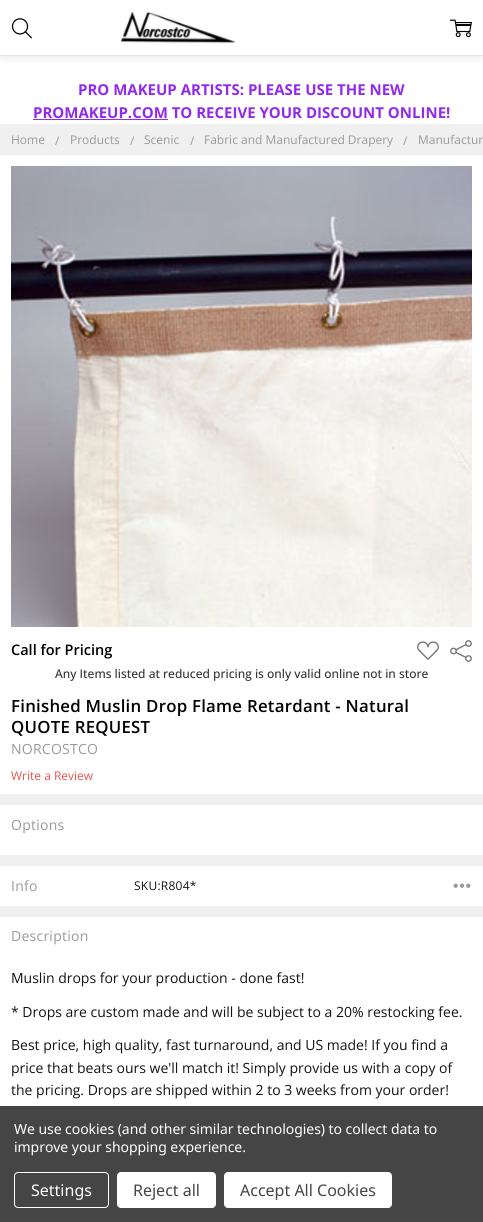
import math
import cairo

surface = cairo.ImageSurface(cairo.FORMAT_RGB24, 483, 1222)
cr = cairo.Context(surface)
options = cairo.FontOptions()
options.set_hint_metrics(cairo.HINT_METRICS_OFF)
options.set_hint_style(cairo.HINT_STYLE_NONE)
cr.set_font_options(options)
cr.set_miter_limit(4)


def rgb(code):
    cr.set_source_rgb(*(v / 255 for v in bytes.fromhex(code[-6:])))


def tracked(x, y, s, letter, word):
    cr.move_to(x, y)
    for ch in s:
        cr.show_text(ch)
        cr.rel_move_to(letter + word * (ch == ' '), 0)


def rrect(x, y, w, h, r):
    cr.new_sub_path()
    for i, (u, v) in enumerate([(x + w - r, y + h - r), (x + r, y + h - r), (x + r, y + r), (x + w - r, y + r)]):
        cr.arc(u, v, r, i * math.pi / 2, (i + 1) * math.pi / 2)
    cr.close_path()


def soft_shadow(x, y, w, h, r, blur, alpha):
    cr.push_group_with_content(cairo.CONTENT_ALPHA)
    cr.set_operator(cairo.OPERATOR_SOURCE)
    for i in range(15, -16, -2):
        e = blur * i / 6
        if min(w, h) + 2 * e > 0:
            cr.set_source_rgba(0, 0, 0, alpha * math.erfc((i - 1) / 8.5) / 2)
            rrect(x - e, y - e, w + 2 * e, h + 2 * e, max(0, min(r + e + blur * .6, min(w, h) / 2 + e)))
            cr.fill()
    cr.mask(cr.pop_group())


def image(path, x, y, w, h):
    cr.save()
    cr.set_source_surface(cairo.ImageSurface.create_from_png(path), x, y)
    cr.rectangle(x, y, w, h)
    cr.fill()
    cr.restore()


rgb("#ffffff")
cr.paint()
cr.save()
cr.rectangle(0, 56, 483, 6)
cr.clip()
rgb("#000000")
soft_shadow(0, 0, 483, 56, 0, 7.5, 0.1)
cr.restore()
rgb("#e5e5e5")
cr.rectangle(0, 55, 483, 1)
cr.fill()
image("img/1.png", 120, 11, 116, 33)
image("img/2.png", 11, 18, 22, 21)
image("img/3.png", 450, 19, 22, 19)
for x, y, w, h, color in [
    (33, 119, 135, 1, "#9229ef"),
    (0, 124, 483, 31, "#f0f0f0"),
    (0, 794, 483, 123, "#f0f0f0"),
]:
    rgb(color)
    cr.rectangle(x, y, w, h)
    cr.fill()
image("img/4.png", 11, 166, 461, 461)
image("img/5.png", 417, 641, 22, 19)
image("img/6.png", 450, 640, 22, 22)
rgb("#ffffff")
cr.rectangle(0, 805, 483, 50)
cr.fill()
cr.rectangle(0, 866, 483, 40)
cr.fill()
image("img/7.png", 453, 883, 18, 5)
rgb("#454545")
cr.rectangle(0, 1106, 483, 116)
cr.fill()
rrect(14.5, 1172.5, 94, 35, 3.5)
rgb("#ffffff")
cr.set_line_width(1)
cr.stroke()
rrect(117, 1172, 99, 36, 4)
cr.fill()
rrect(224, 1172, 168, 36, 4)
cr.fill()
cr.select_font_face("Open Sans", cairo.FONT_SLANT_NORMAL, cairo.FONT_WEIGHT_BOLD)
cr.set_font_size(15)
rgb("#9229ef")
cr.move_to(78, 95)
cr.show_text("PRO MAKEUP ARTISTS: PLEASE USE THE NEW")
cr.move_to(33, 118)
cr.show_text("PROMAKEUP.COM TO RECEIVE YOUR DISCOUNT ONLINE!")
cr.select_font_face("Open Sans")
cr.set_font_size(12)
rgb("#999999")
for x, y, s in [
    (11, 144, "Home"),
    (55, 145, "/"),
    (70, 144, "Products"),
    (130, 145, "/"),
    (144, 144, "Scenic"),
    (190, 145, "/"),
    (204, 144, "Fabric and Manufactured Drapery"),
    (403, 145, "/"),
    (418, 144, "Manufactur"),
]:
    cr.move_to(x, y)
    cr.show_text(s)
cr.select_font_face("Open Sans SemiBold")
cr.set_font_size(14.5)
rgb("#000000")
cr.move_to(11, 655)
cr.show_text("Call for Pricing")
cr.select_font_face("Open Sans Medium")
cr.set_font_size(12)
rgb("#333333")
cr.move_to(55, 678)
cr.show_text("Any Items listed at reduced pricing is only valid online not in store")
cr.select_font_face("Open Sans SemiBold")
cr.set_font_size(16.8)
rgb("#000000")
tracked(11, 712, "Finished Muslin Drop Flame Retardant - Natural", 0.25, 0)
tracked(11, 733, "QUOTE REQUEST", 0.25, 0)
cr.select_font_face("Open Sans")
cr.set_font_size(14)
rgb("#999999")
tracked(11, 754, "NORCOSTCO", 0.25, 0)
cr.set_font_size(12)
rgb("#ee534f")
cr.move_to(11, 780)
cr.show_text("Write a Review")
cr.set_font_size(14)
rgb("#999999")
tracked(11, 830, "Options", 0.25, 0)
tracked(11, 891, "Info", 0.25, 0)
cr.set_font_size(12)
rgb("#131313")
tracked(134, 890, "SKU:R804*", 0.25, 0)
cr.set_font_size(14)
rgb("#999999")
tracked(11, 941, "Description", 0.25, 0)
rgb("#131313")
for x, y, s in [
    (11, 983, "Muslin drops for your production - done fast!"),
    (11, 1017, "* Drops are custom made and will be subject to a 20% restocking fee."),
    (11, 1050, "Best price, high quality, fast turnaround, and US made! If you find a"),
    (11, 1073, "price that beats ours we'll match it! Simply provide us with a copy of"),
    (11, 1095, "the pricing. Drops are shipped within 2 to 3 weeks from your order!"),
]:
    cr.move_to(x, y)
    cr.show_text(s)
cr.select_font_face("Noto Sans")
rgb("#ffffff")
tracked(14, 1134, "We use cookies (and other similar technologies) to collect data to", -0.05, 0)
tracked(14, 1152, "improve your shopping experience.", -0.05, 0)
cr.set_font_size(16)
cr.move_to(31, 1196)
cr.show_text("Settings")
rgb("#454545")
cr.move_to(133, 1196)
cr.show_text("Reject all")
cr.move_to(240, 1196)
cr.show_text("Accept All Cookies")
surface.write_to_png("page.png")
